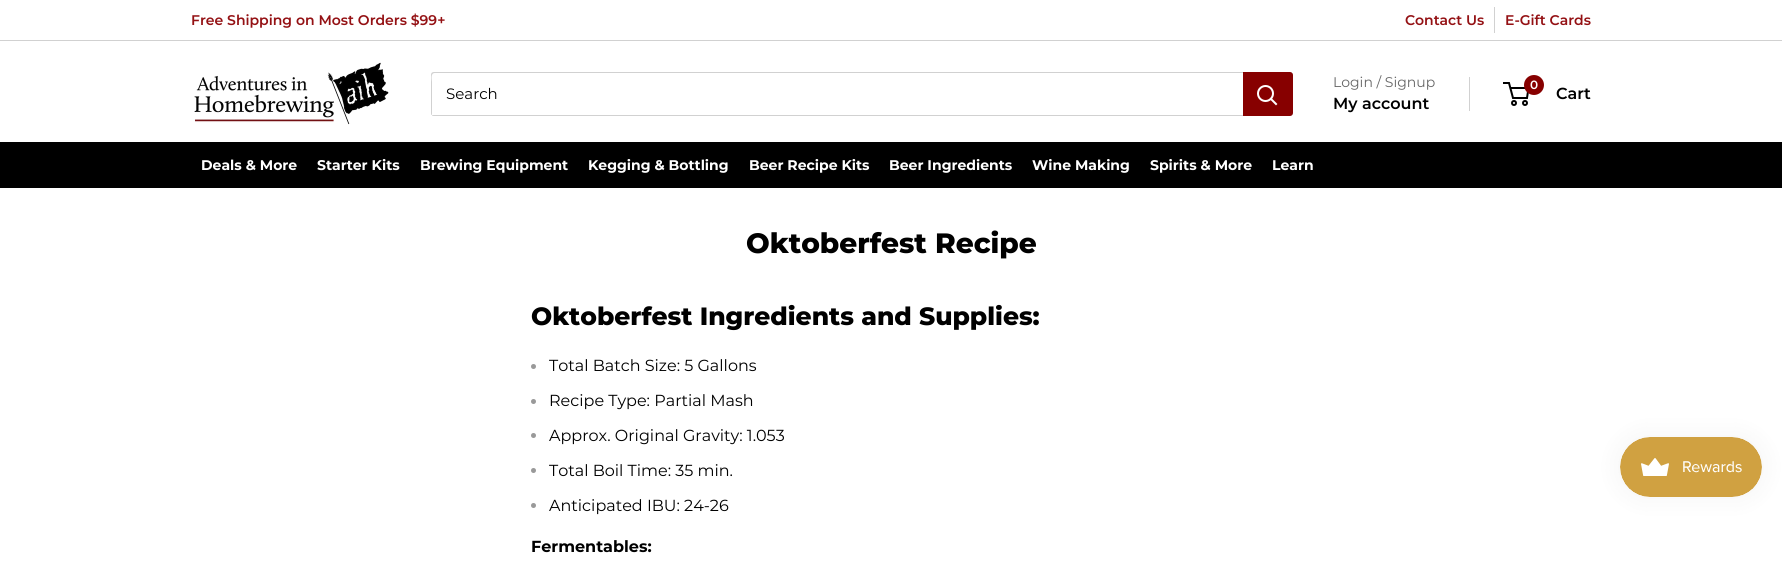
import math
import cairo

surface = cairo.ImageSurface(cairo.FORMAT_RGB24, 1782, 577)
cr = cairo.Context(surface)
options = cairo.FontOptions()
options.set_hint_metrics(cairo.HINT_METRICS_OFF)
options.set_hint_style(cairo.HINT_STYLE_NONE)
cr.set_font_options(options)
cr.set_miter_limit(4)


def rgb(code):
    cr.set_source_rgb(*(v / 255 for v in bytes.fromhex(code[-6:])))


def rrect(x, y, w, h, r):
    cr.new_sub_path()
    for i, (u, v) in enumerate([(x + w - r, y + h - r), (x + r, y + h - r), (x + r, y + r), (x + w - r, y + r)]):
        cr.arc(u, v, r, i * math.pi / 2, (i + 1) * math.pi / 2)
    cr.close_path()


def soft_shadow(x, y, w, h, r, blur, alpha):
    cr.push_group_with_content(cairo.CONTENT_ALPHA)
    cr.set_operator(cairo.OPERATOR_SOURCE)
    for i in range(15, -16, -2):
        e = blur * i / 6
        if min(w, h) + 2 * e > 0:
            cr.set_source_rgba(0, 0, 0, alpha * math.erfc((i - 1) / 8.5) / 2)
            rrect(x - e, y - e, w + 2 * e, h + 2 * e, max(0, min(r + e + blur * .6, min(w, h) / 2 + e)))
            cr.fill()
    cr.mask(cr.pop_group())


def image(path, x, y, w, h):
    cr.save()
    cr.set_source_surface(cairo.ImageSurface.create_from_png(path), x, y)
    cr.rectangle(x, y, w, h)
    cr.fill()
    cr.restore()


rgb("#ffffff")
cr.paint()
rgb("#d1d1d1")
cr.rectangle(0, 40, 1782, 1)
cr.fill()
cr.rectangle(1494, 7, 1, 26)
cr.fill()
image("img/1.png", 194, 62, 195, 63)
cr.new_path()
cr.move_to(432, 115)
cr.curve_to(432, 116, 433, 116, 434, 116)
cr.line_to(1290, 116)
cr.curve_to(1292, 116, 1293, 115, 1293, 113)
cr.line_to(1293, 75)
cr.curve_to(1293, 74, 1293, 73, 1292, 73)
cr.line_to(1292, 106)
cr.curve_to(1292, 108, 1294, 115, 1289, 115)
cr.close_path()
cr.fill()
cr.new_path()
cr.move_to(435, 73)
cr.line_to(1292, 73)
cr.curve_to(1292, 72, 1291, 72, 1290, 72)
cr.line_to(434, 72)
cr.curve_to(432, 72, 431, 73, 431, 75)
cr.line_to(431, 113)
cr.curve_to(431, 114, 431, 115, 432, 115)
cr.line_to(432, 82)
cr.curve_to(432, 80, 430, 73, 435, 73)
cr.close_path()
cr.fill()
rgb("#870000")
cr.new_path()
cr.move_to(1243, 72)
cr.line_to(1290, 72)
cr.curve_to(1291.5, 72, 1293, 73.5, 1293, 75)
cr.line_to(1293, 113)
cr.curve_to(1293, 114.5, 1291.5, 116, 1290, 116)
cr.line_to(1243, 116)
cr.close_path()
cr.fill()
cr.new_path()
cr.move_to(1276, 104)
cr.line_to(1271, 99)
rgb("#ffffff")
cr.set_line_cap(cairo.LINE_CAP_SQUARE)
cr.stroke()
cr.arc(1265.5, 93.5, 7.5, 0, 2 * math.pi)
cr.set_line_cap(cairo.LINE_CAP_BUTT)
cr.stroke()
rgb("#d1d1d1")
cr.rectangle(1469, 77, 1, 34)
cr.fill()
cr.arc(1514, 103, 2, 0, 2 * math.pi)
rgb("#000000")
cr.stroke()
cr.arc(1525, 103, 2, 0, 2 * math.pi)
cr.stroke()
cr.new_path()
cr.move_to(1510.5, 88)
cr.line_to(1528.5, 88)
cr.line_to(1527, 98)
cr.line_to(1513, 98)
cr.line_to(1509, 83)
cr.line_to(1503, 83)
cr.stroke()
rgb("#870000")
cr.arc(1534, 85, 10, 0, 2 * math.pi)
cr.fill()
rgb("#000000")
cr.rectangle(0, 142, 1782, 46)
cr.fill()
rgb("#999999")
cr.arc(533.5, 366.5, 2.5, 0, 2 * math.pi)
cr.fill()
cr.arc(533.5, 401.5, 2.5, 0, 2 * math.pi)
cr.fill()
cr.arc(533.5, 435.5, 2.5, 0, 2 * math.pi)
cr.fill()
cr.arc(533.5, 470.5, 2.5, 0, 2 * math.pi)
cr.fill()
cr.arc(533.5, 505.5, 2.5, 0, 2 * math.pi)
cr.fill()
rgb("#000000")
soft_shadow(1620, 437, 142, 60, 30, 12.5, 0.05)
image("img/2.png", 1620, 437, 142, 60)
cr.select_font_face("Montserrat SemiBold")
cr.set_font_size(14)
rgb("#941114")
for x, y, s in [
    (191, 25, "Free Shipping on Most Orders $99+"),
    (1405, 25, "Contact Us"),
    (1505, 25, "E-Gift Cards"),
]:
    cr.move_to(x, y)
    cr.show_text(s)
cr.select_font_face("Montserrat")
cr.set_font_size(15)
rgb("#000000")
cr.move_to(446, 99)
cr.show_text("Search")
cr.set_font_size(14)
rgb("#666666")
cr.move_to(1333, 87)
cr.show_text("Login / Signup")
cr.select_font_face("Montserrat SemiBold")
cr.set_font_size(16)
rgb("#000000")
cr.move_to(1333, 109)
cr.show_text("My account")
cr.set_font_size(12)
rgb("#ffffff")
cr.move_to(1530, 89)
cr.show_text("0")
cr.set_font_size(16)
rgb("#000000")
cr.move_to(1556, 99)
cr.show_text("Cart")
cr.select_font_face("Montserrat", cairo.FONT_SLANT_NORMAL, cairo.FONT_WEIGHT_BOLD)
cr.set_font_size(14)
rgb("#ffffff")
for x, y, s in [
    (201, 170, "Deals & More"),
    (317, 170, "Starter Kits"),
    (420, 170, "Brewing Equipment"),
    (588, 170, "Kegging & Bottling"),
    (749, 170, "Beer Recipe Kits"),
    (889, 170, "Beer Ingredients"),
    (1032, 170, "Wine Making"),
    (1150, 170, "Spirits & More"),
    (1272, 170, "Learn"),
]:
    cr.move_to(x, y)
    cr.show_text(s)
cr.select_font_face("Montserrat ExtraBold")
cr.set_font_size(28)
rgb("#000000")
cr.move_to(746, 253)
cr.show_text("Oktoberfest Recipe")
cr.set_font_size(25)
cr.move_to(531, 325)
cr.show_text("Oktoberfest Ingredients and Supplies:")
cr.select_font_face("Montserrat")
cr.set_font_size(16)
for x, y, s in [
    (549, 371, "Total Batch Size: 5 Gallons"),
    (549, 406, "Recipe Type: Partial Mash"),
    (549, 441, "Approx. Original Gravity: 1.053"),
    (549, 476, "Total Boil Time: 35 min."),
    (549, 511, "Anticipated IBU: 24-26"),
]:
    cr.move_to(x, y)
    cr.show_text(s)
cr.select_font_face("Montserrat", cairo.FONT_SLANT_NORMAL, cairo.FONT_WEIGHT_BOLD)
cr.move_to(531, 552)
cr.show_text("Fermentables:")
surface.write_to_png("page.png")
